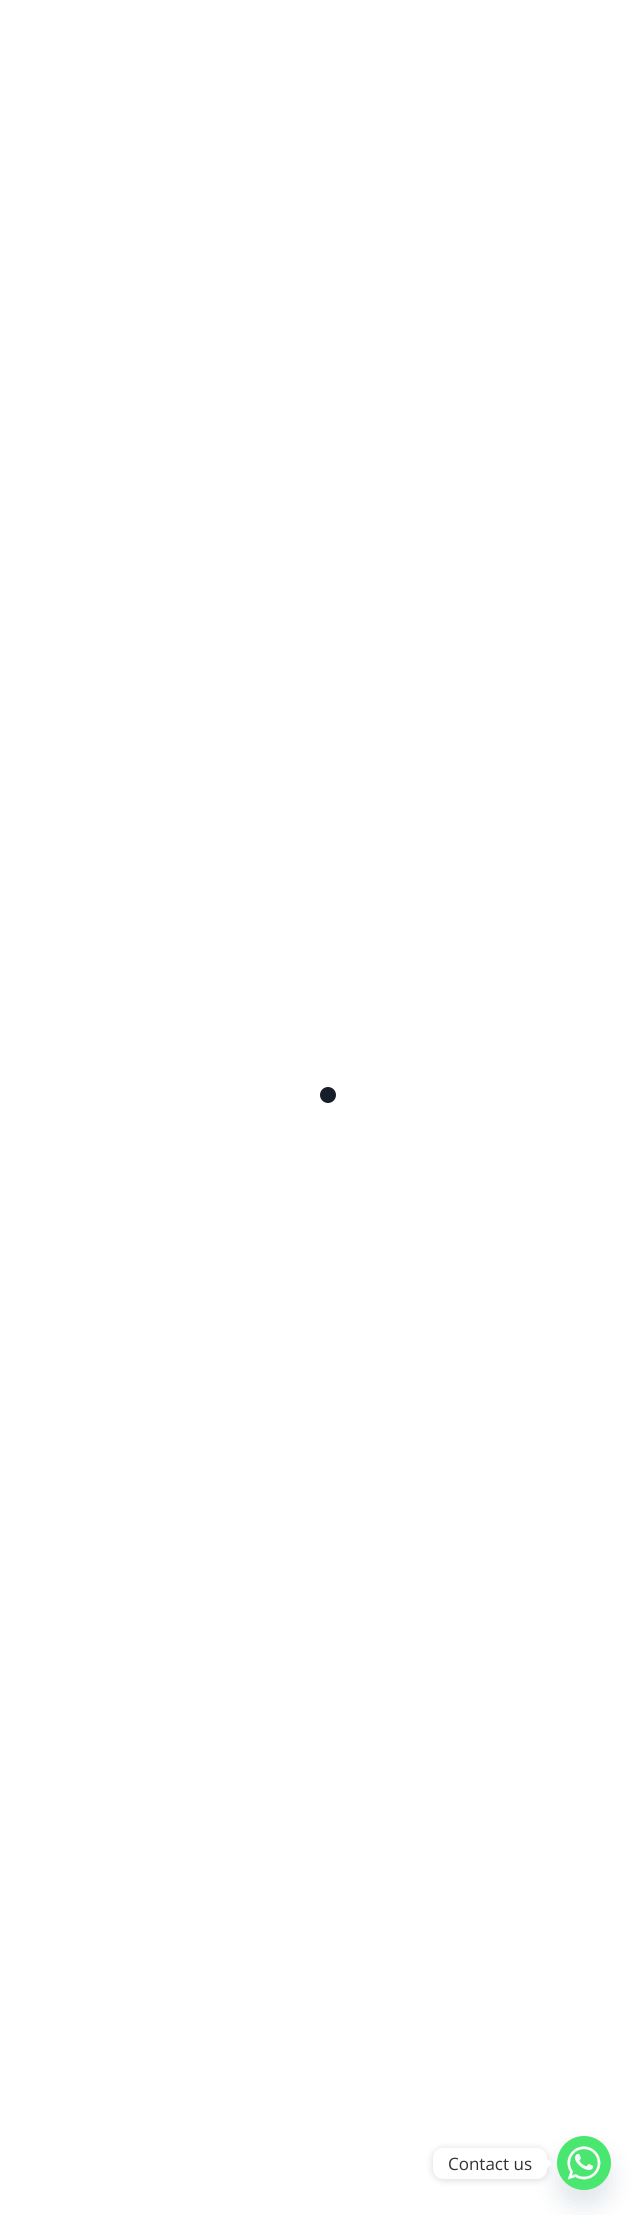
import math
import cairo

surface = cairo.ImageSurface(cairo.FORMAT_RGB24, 640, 2215)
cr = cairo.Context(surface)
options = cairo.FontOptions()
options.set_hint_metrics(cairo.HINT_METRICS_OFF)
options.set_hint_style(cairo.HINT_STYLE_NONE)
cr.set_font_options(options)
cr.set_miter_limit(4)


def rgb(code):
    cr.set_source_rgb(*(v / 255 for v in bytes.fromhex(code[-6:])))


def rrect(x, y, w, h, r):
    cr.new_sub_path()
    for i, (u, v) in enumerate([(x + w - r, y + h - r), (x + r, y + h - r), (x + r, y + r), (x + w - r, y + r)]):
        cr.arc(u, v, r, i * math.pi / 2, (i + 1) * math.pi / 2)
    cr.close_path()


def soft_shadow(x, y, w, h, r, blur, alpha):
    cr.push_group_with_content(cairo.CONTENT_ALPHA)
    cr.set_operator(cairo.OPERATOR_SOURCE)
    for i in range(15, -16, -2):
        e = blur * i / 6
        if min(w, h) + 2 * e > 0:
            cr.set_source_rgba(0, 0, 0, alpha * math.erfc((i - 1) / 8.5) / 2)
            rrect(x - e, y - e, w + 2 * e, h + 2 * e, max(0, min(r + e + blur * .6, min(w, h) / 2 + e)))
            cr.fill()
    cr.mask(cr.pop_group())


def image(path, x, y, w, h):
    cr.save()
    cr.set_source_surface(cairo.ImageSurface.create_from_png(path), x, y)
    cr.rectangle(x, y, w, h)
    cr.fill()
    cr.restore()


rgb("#ffffff")
cr.paint()
rgb("#171d29")
cr.arc(328, 1095, 8, 0, 2 * math.pi)
cr.fill()
rgb("#49687e")
soft_shadow(557, 2152, 54, 54, 27, 12, 0.16)
image("img/1.png", 557, 2136, 54, 54)
rgb("#000000")
soft_shadow(433, 2149, 114, 31, 10, 4, 0.15)
rgb("#ffffff")
rrect(433, 2148, 114, 31, 10)
cr.fill()
cr.new_path()
cr.move_to(547, 2168.5)
cr.line_to(547, 2158.5)
cr.line_to(552, 2163.5)
cr.close_path()
cr.fill()
cr.select_font_face("Open Sans")
cr.set_font_size(17)
rgb("#333333")
cr.move_to(448, 2170)
cr.show_text("Contact us")
surface.write_to_png("page.png")
